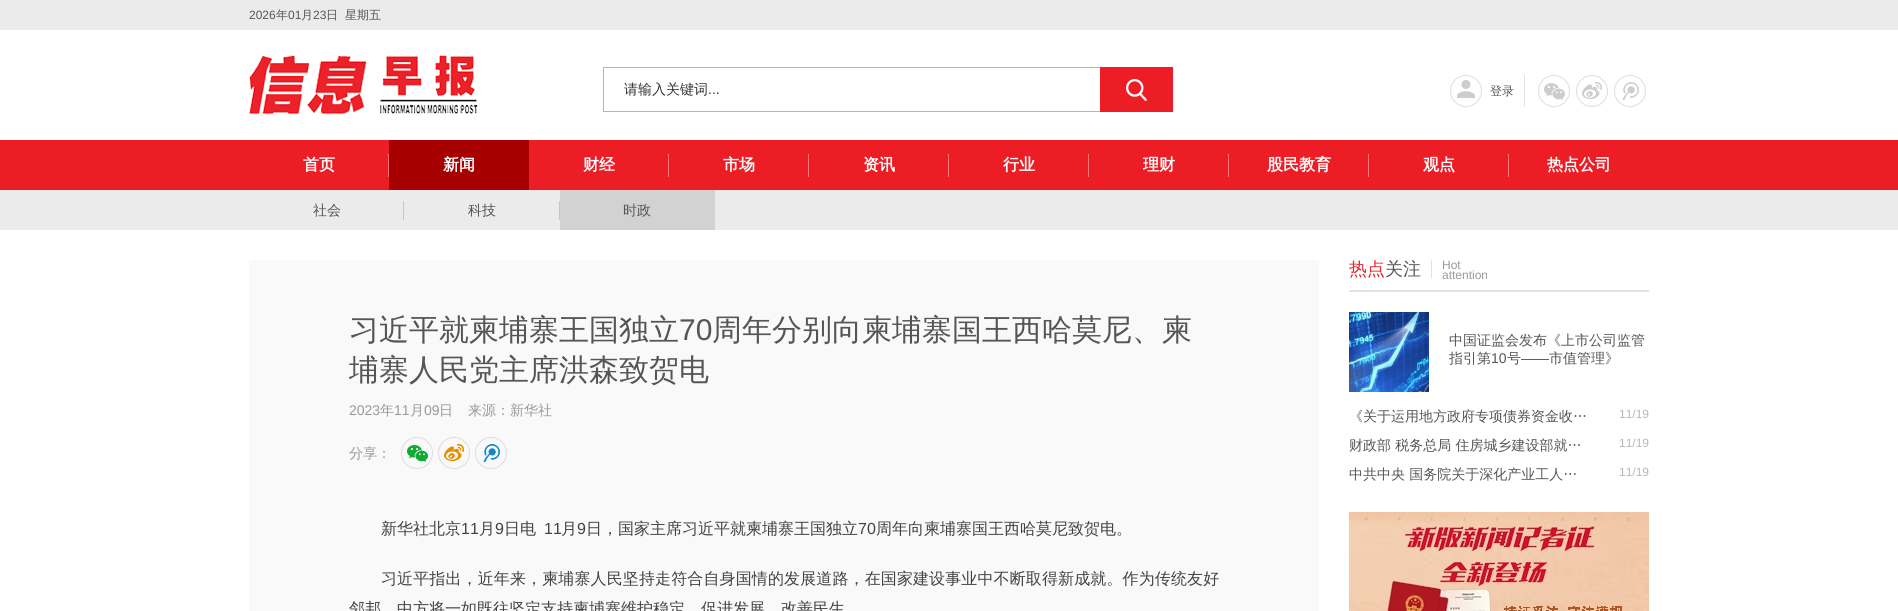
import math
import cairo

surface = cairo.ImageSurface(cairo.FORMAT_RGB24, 1898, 611)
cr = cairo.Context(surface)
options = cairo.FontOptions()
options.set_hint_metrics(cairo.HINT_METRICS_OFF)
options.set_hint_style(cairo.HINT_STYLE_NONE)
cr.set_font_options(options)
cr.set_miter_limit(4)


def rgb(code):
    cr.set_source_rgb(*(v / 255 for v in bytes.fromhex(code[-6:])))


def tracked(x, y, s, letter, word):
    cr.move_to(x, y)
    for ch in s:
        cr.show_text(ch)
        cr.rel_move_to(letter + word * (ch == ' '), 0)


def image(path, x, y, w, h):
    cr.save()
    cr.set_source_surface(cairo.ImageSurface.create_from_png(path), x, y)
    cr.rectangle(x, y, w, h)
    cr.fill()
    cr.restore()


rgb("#ffffff")
cr.paint()
rgb("#ebebeb")
cr.rectangle(0, 0, 1898, 30)
cr.fill()
image("img/1.png", 249, 55, 229, 60)
for x, y, w, h, color in [
    (603, 67, 497, 1, "#b5b5b5"),
    (603, 111, 497, 1, "#b5b5b5"),
    (603, 67, 1, 45, "#b5b5b5"),
    (1100, 67, 73, 45, "#ec1d25"),
]:
    rgb(color)
    cr.rectangle(x, y, w, h)
    cr.fill()
image("img/2.png", 1126, 79, 21, 22)
rgb("#e2e2e2")
cr.rectangle(1524, 75, 1, 32)
cr.fill()
image("img/3.png", 1450, 75, 32, 32)
image("img/4.png", 1538, 75, 32, 32)
image("img/5.png", 1576, 75, 32, 32)
image("img/6.png", 1614, 75, 32, 32)
for x, y, w, h, color in [
    (0, 140, 1898, 50, "#ec1d25"),
    (388, 154, 1, 23, "#f4777c"),
    (389, 140, 140, 50, "#a60000"),
    (668, 154, 1, 23, "#f4777c"),
    (808, 154, 1, 23, "#f4777c"),
    (948, 154, 1, 23, "#f4777c"),
    (1088, 154, 1, 23, "#f4777c"),
    (1228, 154, 1, 23, "#f4777c"),
    (1368, 154, 1, 23, "#f4777c"),
    (1508, 154, 1, 23, "#f4777c"),
    (0, 190, 1898, 40, "#ebebeb"),
    (403, 201, 1, 19, "#c5c5c5"),
    (559, 201, 1, 19, "#c5c5c5"),
    (560, 190, 155, 40, "#d2d2d2"),
    (249, 260, 1070, 351, "#f9f9f9"),
]:
    rgb(color)
    cr.rectangle(x, y, w, h)
    cr.fill()
image("img/7.png", 401, 437, 32, 32)
image("img/8.png", 438, 437, 32, 32)
image("img/9.png", 475, 437, 32, 32)
rgb("#e2e2e2")
cr.rectangle(1349, 290, 300, 2)
cr.fill()
cr.rectangle(1431, 260, 1, 18)
cr.fill()
image("img/10.png", 1349, 312, 80, 80)
image("img/11.png", 1349, 512, 300, 99)
cr.select_font_face("Liberation Sans")
cr.set_font_size(12)
rgb("#555555")
cr.move_to(249, 19)
cr.show_text("2026")
cr.select_font_face("WenQuanYi Zen Hei Medium")
cr.move_to(276, 19)
cr.show_text("年")
cr.select_font_face("Liberation Sans")
cr.move_to(288, 19)
cr.show_text("01")
cr.select_font_face("WenQuanYi Zen Hei Medium")
cr.move_to(301, 19)
cr.show_text("月")
cr.select_font_face("Liberation Sans")
cr.move_to(313, 19)
cr.show_text("23")
cr.select_font_face("WenQuanYi Zen Hei Medium")
cr.move_to(326, 19)
cr.show_text("日")
cr.move_to(345, 19)
cr.show_text("星期五")
cr.set_font_size(14)
rgb("#333333")
cr.move_to(624, 94)
cr.show_text("请输入关键词")
cr.select_font_face("Liberation Sans")
cr.move_to(708, 94)
cr.show_text("...")
cr.select_font_face("WenQuanYi Zen Hei Medium")
cr.set_font_size(12)
rgb("#555555")
cr.move_to(1490, 95)
cr.show_text("登录")
cr.select_font_face("WenQuanYi Zen Hei", cairo.FONT_SLANT_NORMAL, cairo.FONT_WEIGHT_BOLD)
cr.set_font_size(16)
rgb("#ffffff")
for x, y, s in [
    (303, 170, "首页"),
    (443, 170, "新闻"),
    (583, 170, "财经"),
    (723, 170, "市场"),
    (863, 170, "资讯"),
    (1003, 170, "行业"),
    (1143, 170, "理财"),
    (1267, 170, "股民教育"),
    (1423, 170, "观点"),
    (1547, 170, "热点公司"),
]:
    cr.move_to(x, y)
    cr.show_text(s)
cr.select_font_face("WenQuanYi Zen Hei Medium")
cr.set_font_size(14)
rgb("#555555")
for x, y, s in [
    (313, 215, "社会"),
    (468, 215, "科技"),
    (623, 215, "时政"),
]:
    cr.move_to(x, y)
    cr.show_text(s)
cr.set_font_size(30)
cr.move_to(349, 340)
cr.show_text("习近平就柬埔寨王国独立")
cr.select_font_face("Liberation Sans")
cr.move_to(679, 340)
cr.show_text("70")
cr.select_font_face("WenQuanYi Zen Hei Medium")
cr.move_to(712, 340)
cr.show_text("周年分别向柬埔寨国王西哈莫尼、柬")
cr.move_to(349, 380)
cr.show_text("埔寨人民党主席洪森致贺电")
cr.select_font_face("Liberation Sans")
cr.set_font_size(14)
rgb("#999999")
cr.move_to(349, 415)
cr.show_text("2023")
cr.select_font_face("WenQuanYi Zen Hei Medium")
cr.move_to(380, 415)
cr.show_text("年")
cr.select_font_face("Liberation Sans")
cr.move_to(394, 415)
cr.show_text("11")
cr.select_font_face("WenQuanYi Zen Hei Medium")
cr.move_to(410, 415)
cr.show_text("月")
cr.select_font_face("Liberation Sans")
cr.move_to(424, 415)
cr.show_text("09")
cr.select_font_face("WenQuanYi Zen Hei Medium")
for x, y, s in [
    (439, 415, "日"),
    (468, 415, "来源：新华社"),
    (349, 458, "分享："),
]:
    cr.move_to(x, y)
    cr.show_text(s)
cr.set_font_size(16)
rgb("#414141")
cr.move_to(381, 534)
cr.show_text("新华社北京")
cr.select_font_face("Liberation Sans")
cr.move_to(461, 534)
cr.show_text("11")
cr.select_font_face("WenQuanYi Zen Hei Medium")
cr.move_to(479, 534)
cr.show_text("月")
cr.select_font_face("Liberation Sans")
cr.move_to(495, 534)
cr.show_text("9")
cr.select_font_face("WenQuanYi Zen Hei Medium")
cr.move_to(504, 534)
cr.show_text("日电")
cr.select_font_face("Liberation Sans")
cr.move_to(544, 534)
cr.show_text("11")
cr.select_font_face("WenQuanYi Zen Hei Medium")
cr.move_to(561, 534)
cr.show_text("月")
cr.select_font_face("Liberation Sans")
cr.move_to(577, 534)
cr.show_text("9")
cr.select_font_face("WenQuanYi Zen Hei Medium")
cr.move_to(586, 534)
cr.show_text("日，国家主席习近平就柬埔寨王国独立")
cr.select_font_face("Liberation Sans")
cr.move_to(858, 534)
cr.show_text("70")
cr.select_font_face("WenQuanYi Zen Hei Medium")
cr.move_to(876, 534)
cr.show_text("周年向柬埔寨国王西哈莫尼致贺电。")
tracked(381, 584, "习近平指出，近年来，柬埔寨人民坚持走符合自身国情的发展道路，在国家建设事业中不断取得新成就。作为传统友好", 0.12, 0)
cr.move_to(349, 614)
cr.show_text("邻邦，中方将一如既往坚定支持柬埔寨维护稳定、促进发展、改善民生")
cr.set_font_size(18)
rgb("#ec2129")
cr.move_to(1349, 275)
cr.show_text("热点")
rgb("#555555")
cr.move_to(1385, 275)
cr.show_text("关注")
cr.select_font_face("Liberation Sans")
cr.set_font_size(12)
rgb("#999999")
cr.move_to(1442, 269)
cr.show_text("Hot")
cr.move_to(1442, 279)
cr.show_text("attention")
cr.select_font_face("WenQuanYi Zen Hei Medium")
cr.set_font_size(14)
rgb("#555555")
cr.move_to(1449, 345)
cr.show_text("中国证监会发布《上市公司监管")
cr.move_to(1449, 363)
cr.show_text("指引第")
cr.select_font_face("Liberation Sans")
cr.move_to(1491, 363)
cr.show_text("10")
cr.select_font_face("WenQuanYi Zen Hei Medium")
cr.move_to(1507, 363)
cr.show_text("号")
cr.select_font_face("Liberation Sans")
cr.move_to(1521, 363)
cr.show_text("——")
cr.select_font_face("WenQuanYi Zen Hei Medium")
cr.move_to(1549, 363)
cr.show_text("市值管理》")
cr.move_to(1349, 421)
cr.show_text("《关于运用地方政府专项债券资金收…")
cr.select_font_face("Liberation Sans")
cr.set_font_size(12)
rgb("#b8b8b8")
cr.move_to(1619, 418)
cr.show_text("11/19")
cr.select_font_face("WenQuanYi Zen Hei Medium")
cr.set_font_size(14)
rgb("#555555")
cr.move_to(1349, 450)
cr.show_text("财政部 税务总局 住房城乡建设部就…")
cr.select_font_face("Liberation Sans")
cr.set_font_size(12)
rgb("#b8b8b8")
cr.move_to(1619, 447)
cr.show_text("11/19")
cr.select_font_face("WenQuanYi Zen Hei Medium")
cr.set_font_size(14)
rgb("#555555")
cr.move_to(1349, 479)
cr.show_text("中共中央 国务院关于深化产业工人…")
cr.select_font_face("Liberation Sans")
cr.set_font_size(12)
rgb("#b8b8b8")
cr.move_to(1619, 476)
cr.show_text("11/19")
surface.write_to_png("page.png")
